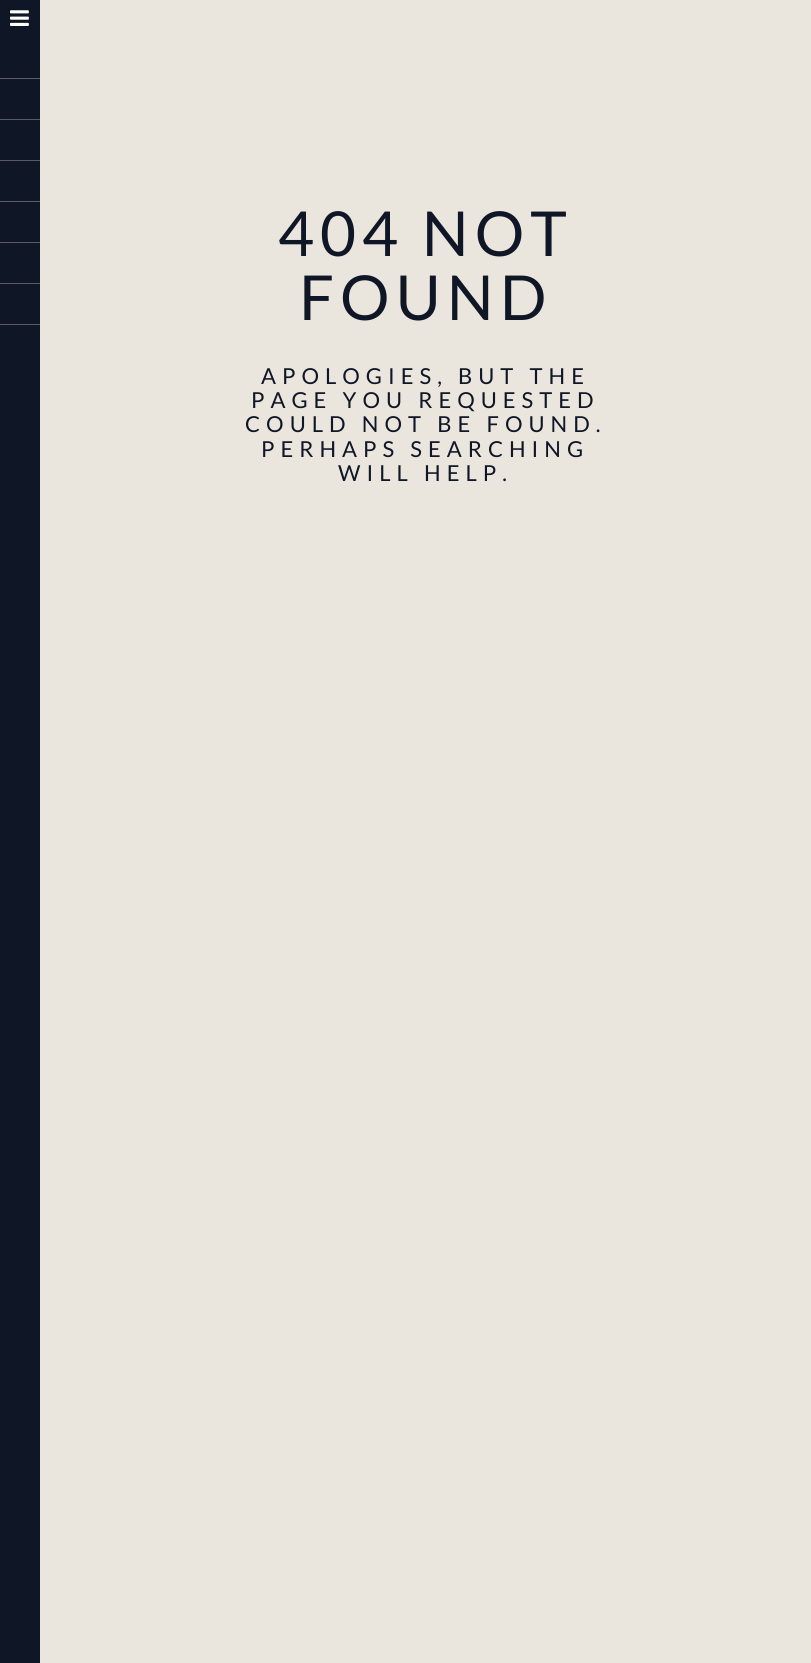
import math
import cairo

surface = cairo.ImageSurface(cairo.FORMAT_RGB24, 811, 1663)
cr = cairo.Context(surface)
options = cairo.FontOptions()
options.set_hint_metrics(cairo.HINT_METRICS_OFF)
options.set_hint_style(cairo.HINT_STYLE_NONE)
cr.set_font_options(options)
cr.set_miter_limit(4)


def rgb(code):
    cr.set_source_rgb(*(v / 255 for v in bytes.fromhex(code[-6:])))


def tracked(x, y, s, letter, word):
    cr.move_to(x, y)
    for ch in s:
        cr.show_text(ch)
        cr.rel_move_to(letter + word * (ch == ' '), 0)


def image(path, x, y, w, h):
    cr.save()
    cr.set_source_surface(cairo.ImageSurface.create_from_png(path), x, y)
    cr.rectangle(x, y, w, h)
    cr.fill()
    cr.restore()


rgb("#0f1626")
cr.paint()
image("img/1.png", 10, 10, 19, 16)
for x, y, w, h, color in [
    (0, 78, 40, 1, "#575c67"),
    (0, 119, 40, 1, "#575c67"),
    (0, 160, 40, 1, "#575c67"),
    (0, 201, 40, 1, "#575c67"),
    (0, 242, 40, 1, "#575c67"),
    (0, 283, 40, 1, "#575c67"),
    (0, 324, 40, 1, "#575c67"),
    (40, 0, 771, 1663, "#eae5dd"),
]:
    rgb(color)
    cr.rectangle(x, y, w, h)
    cr.fill()
cr.select_font_face("Lato")
cr.set_font_size(62)
rgb("#0f1626")
tracked(278, 256, "404 NOT", 6, 0)
tracked(299, 320, "FOUND", 6, 0)
cr.set_font_size(22)
for x, y, s in [
    (261, 384, "APOLOGIES, BUT THE"),
    (251, 408, "PAGE YOU REQUESTED"),
    (245, 432, "COULD NOT BE FOUND."),
    (261, 457, "PERHAPS SEARCHING"),
    (338, 481, "WILL HELP."),
]:
    tracked(x, y, s, 6, 0)
surface.write_to_png("page.png")
